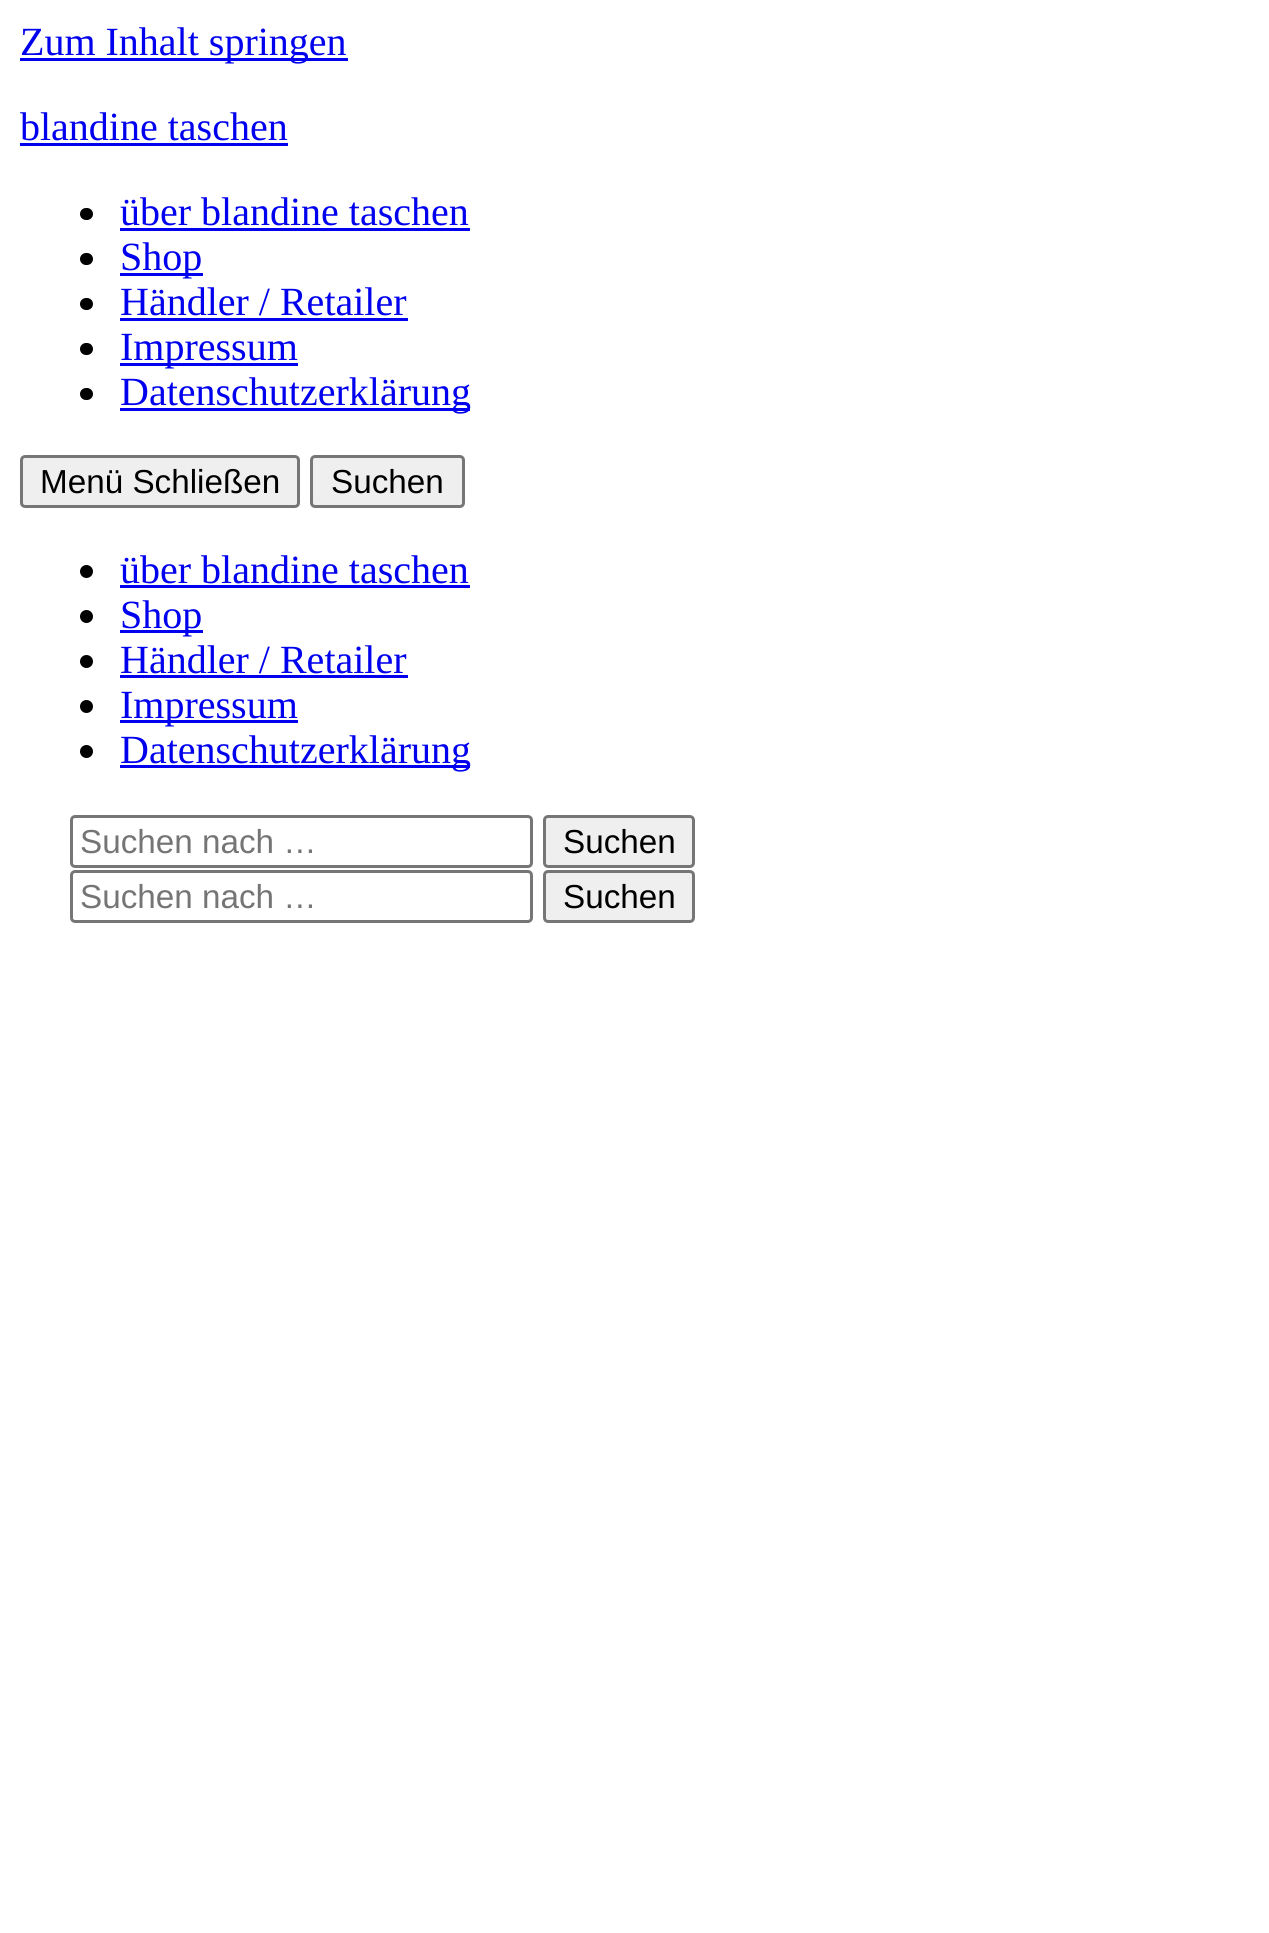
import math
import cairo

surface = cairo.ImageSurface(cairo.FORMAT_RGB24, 1269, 1933)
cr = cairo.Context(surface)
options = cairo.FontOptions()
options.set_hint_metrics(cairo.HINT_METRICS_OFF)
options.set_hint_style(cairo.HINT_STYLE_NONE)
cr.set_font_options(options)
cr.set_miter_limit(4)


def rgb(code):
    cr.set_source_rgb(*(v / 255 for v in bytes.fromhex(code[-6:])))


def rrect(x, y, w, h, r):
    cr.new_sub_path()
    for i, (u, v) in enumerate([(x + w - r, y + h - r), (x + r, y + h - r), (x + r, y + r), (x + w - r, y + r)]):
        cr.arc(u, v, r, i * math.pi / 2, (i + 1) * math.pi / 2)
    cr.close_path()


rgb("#ffffff")
cr.paint()
rgb("#0000ee")
cr.rectangle(20, 58, 328, 3)
cr.fill()
cr.rectangle(20, 143, 268, 3)
cr.fill()
rgb("#000000")
rrect(80, 208, 13, 12, 6)
cr.fill()
rgb("#0000ee")
cr.rectangle(120, 228, 350, 3)
cr.fill()
rgb("#000000")
rrect(80, 253, 13, 12, 6)
cr.fill()
rgb("#0000ee")
cr.rectangle(120, 273, 83, 3)
cr.fill()
rgb("#000000")
rrect(80, 298, 13, 12, 6)
cr.fill()
rgb("#0000ee")
cr.rectangle(120, 318, 288, 3)
cr.fill()
rgb("#000000")
rrect(80, 343, 13, 12, 6)
cr.fill()
rgb("#0000ee")
cr.rectangle(120, 363, 178, 3)
cr.fill()
rgb("#000000")
rrect(80, 388, 13, 12, 6)
cr.fill()
rgb("#0000ee")
cr.rectangle(120, 408, 350, 3)
cr.fill()
rgb("#efefef")
rrect(21.5, 456.5, 277, 50, 3.5)
cr.fill_preserve()
rgb("#767676")
cr.set_line_width(3)
cr.stroke()
rgb("#efefef")
rrect(311.5, 456.5, 152, 50, 3.5)
cr.fill_preserve()
rgb("#767676")
cr.stroke()
rgb("#000000")
cr.arc(86.5, 571.5, 6.5, 0, 2 * math.pi)
cr.fill()
rgb("#0000ee")
cr.rectangle(120, 585, 350, 3)
cr.fill()
rgb("#000000")
cr.arc(86.5, 616.5, 6.5, 0, 2 * math.pi)
cr.fill()
rgb("#0000ee")
cr.rectangle(120, 630, 83, 3)
cr.fill()
rgb("#000000")
cr.arc(86.5, 661.5, 6.5, 0, 2 * math.pi)
cr.fill()
rgb("#0000ee")
cr.rectangle(120, 675, 288, 3)
cr.fill()
rgb("#000000")
cr.arc(86.5, 706.5, 6.5, 0, 2 * math.pi)
cr.fill()
rgb("#0000ee")
cr.rectangle(120, 720, 178, 3)
cr.fill()
rgb("#000000")
cr.arc(86.5, 751.5, 6.5, 0, 2 * math.pi)
cr.fill()
rgb("#0000ee")
cr.rectangle(120, 765, 350, 3)
cr.fill()
rrect(71.5, 816.5, 460, 50, 3.5)
rgb("#767676")
cr.stroke()
rgb("#efefef")
rrect(544.5, 816.5, 149, 50, 3.5)
cr.fill_preserve()
rgb("#767676")
cr.stroke()
rrect(71.5, 871.5, 460, 50, 3.5)
cr.stroke()
rgb("#efefef")
rrect(544.5, 871.5, 149, 50, 3.5)
cr.fill_preserve()
rgb("#767676")
cr.stroke()
cr.select_font_face("Liberation Serif")
cr.set_font_size(40)
rgb("#0000ee")
for x, y, s in [
    (20, 55, "Zum Inhalt springen"),
    (20, 140, "blandine taschen"),
    (120, 225, "über blandine taschen"),
    (120, 270, "Shop"),
    (120, 315, "Händler / Retailer"),
    (120, 360, "Impressum"),
    (120, 405, "Datenschutzerklärung"),
]:
    cr.move_to(x, y)
    cr.show_text(s)
cr.select_font_face("Liberation Sans")
cr.set_font_size(33.25)
rgb("#000000")
cr.move_to(40, 493)
cr.show_text("Menü Schließen")
cr.move_to(331, 493)
cr.show_text("Suchen")
cr.select_font_face("Liberation Serif")
cr.set_font_size(40)
rgb("#0000ee")
for x, y, s in [
    (120, 583, "über blandine taschen"),
    (120, 628, "Shop"),
    (120, 673, "Händler / Retailer"),
    (120, 718, "Impressum"),
    (120, 763, "Datenschutzerklärung"),
]:
    cr.move_to(x, y)
    cr.show_text(s)
cr.select_font_face("Liberation Sans")
cr.set_font_size(33.25)
rgb("#757575")
cr.move_to(80, 853)
cr.show_text("Suchen nach …")
rgb("#000000")
cr.move_to(563, 853)
cr.show_text("Suchen")
rgb("#757575")
cr.move_to(80, 908)
cr.show_text("Suchen nach …")
rgb("#000000")
cr.move_to(563, 908)
cr.show_text("Suchen")
surface.write_to_png("page.png")
